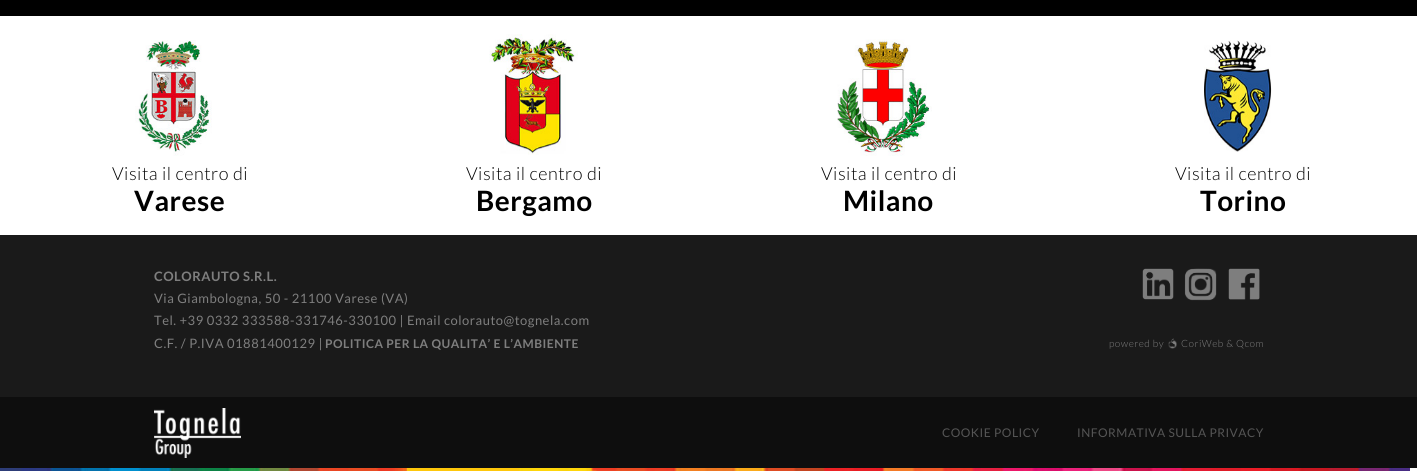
import math
import cairo

surface = cairo.ImageSurface(cairo.FORMAT_RGB24, 1417, 471)
cr = cairo.Context(surface)
options = cairo.FontOptions()
options.set_hint_metrics(cairo.HINT_METRICS_OFF)
options.set_hint_style(cairo.HINT_STYLE_NONE)
cr.set_font_options(options)
cr.set_miter_limit(4)


def rgb(code):
    cr.set_source_rgb(*(v / 255 for v in bytes.fromhex(code[-6:])))


def tracked(x, y, s, letter, word):
    cr.move_to(x, y)
    for ch in s:
        cr.show_text(ch)
        cr.rel_move_to(letter + word * (ch == ' '), 0)


def image(path, x, y, w, h):
    cr.save()
    cr.set_source_surface(cairo.ImageSurface.create_from_png(path), x, y)
    cr.rectangle(x, y, w, h)
    cr.fill()
    cr.restore()


rgb("#ffffff")
cr.paint()
rgb("#000000")
cr.rectangle(0, 0, 1417, 16)
cr.fill()
image("img/1.png", 135, 40, 77, 116)
image("img/2.png", 489, 34, 89, 121)
image("img/3.png", 837, 39, 95, 117)
image("img/4.png", 1204, 40, 68, 112)
rgb("#1a1a1a")
cr.rectangle(0, 235, 1417, 162)
cr.fill()
image("img/5.png", 1142, 268, 32, 32)
image("img/6.png", 1184, 268, 33, 33)
image("img/7.png", 1228, 268, 32, 32)
image("img/8.png", 1168, 338, 9, 11)
rgb("#0e0e0e")
cr.rectangle(0, 397, 1417, 71)
cr.fill()
image("img/9.png", 154, 408, 87, 50)
image("img/10.png", 0, 468, 1410, 3)
cr.select_font_face("Lato Light")
cr.set_font_size(18)
rgb("#000000")
tracked(112, 180, "Visita il centro di", 0.5, 0)
cr.select_font_face("Lato", cairo.FONT_SLANT_NORMAL, cairo.FONT_WEIGHT_BOLD)
cr.set_font_size(28)
tracked(134, 211, "Varese", 0.5, 0)
cr.select_font_face("Lato Light")
cr.set_font_size(18)
tracked(466, 180, "Visita il centro di", 0.5, 0)
cr.select_font_face("Lato", cairo.FONT_SLANT_NORMAL, cairo.FONT_WEIGHT_BOLD)
cr.set_font_size(28)
tracked(476, 211, "Bergamo", 0.5, 0)
cr.select_font_face("Lato Light")
cr.set_font_size(18)
tracked(821, 180, "Visita il centro di", 0.5, 0)
cr.select_font_face("Lato", cairo.FONT_SLANT_NORMAL, cairo.FONT_WEIGHT_BOLD)
cr.set_font_size(28)
tracked(843, 211, "Milano", 0.5, 0)
cr.select_font_face("Lato Light")
cr.set_font_size(18)
tracked(1175, 180, "Visita il centro di", 0.5, 0)
cr.select_font_face("Lato", cairo.FONT_SLANT_NORMAL, cairo.FONT_WEIGHT_BOLD)
cr.set_font_size(28)
tracked(1200, 211, "Torino", 0.5, 0)
cr.set_font_size(13)
rgb("#7e7e7e")
tracked(154, 281, "COLORAUTO S.R.L.", 0.5, 0)
cr.select_font_face("Lato")
for x, y, s in [
    (154, 303, "Via Giambologna, 50 - 21100 Varese (VA)"),
    (154, 325, "Tel. +39 0332 333588-331746-330100 | Email colorauto@tognela.com"),
    (154, 348, "C.F. / P.IVA 01881400129 |"),
]:
    tracked(x, y, s, 0.5, 0)
cr.select_font_face("Lato", cairo.FONT_SLANT_NORMAL, cairo.FONT_WEIGHT_BOLD)
cr.set_font_size(12)
tracked(325, 348, "POLITICA PER LA QUALITA’ E L’AMBIENTE", 0.5, 0)
cr.select_font_face("Lato Light")
cr.set_font_size(10)
tracked(1109, 347, "powered by", 0.5, 0)
tracked(1181, 347, "CoriWeb & Qcom", 0.5, 0)
cr.select_font_face("Lato")
cr.set_font_size(12)
rgb("#555555")
tracked(942, 437, "COOKIE POLICY", 0.5, 0)
tracked(1077, 437, "INFORMATIVA SULLA PRIVACY", 0.5, 0)
surface.write_to_png("page.png")
